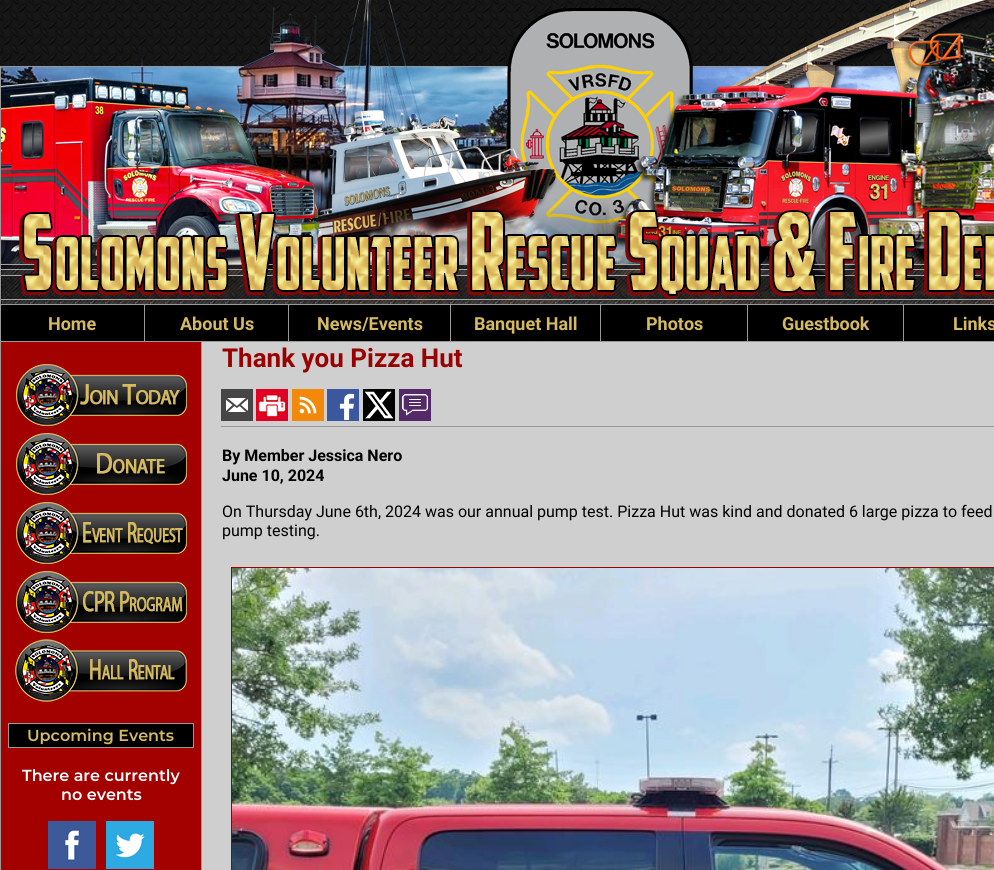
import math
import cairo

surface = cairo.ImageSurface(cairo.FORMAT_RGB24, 994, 870)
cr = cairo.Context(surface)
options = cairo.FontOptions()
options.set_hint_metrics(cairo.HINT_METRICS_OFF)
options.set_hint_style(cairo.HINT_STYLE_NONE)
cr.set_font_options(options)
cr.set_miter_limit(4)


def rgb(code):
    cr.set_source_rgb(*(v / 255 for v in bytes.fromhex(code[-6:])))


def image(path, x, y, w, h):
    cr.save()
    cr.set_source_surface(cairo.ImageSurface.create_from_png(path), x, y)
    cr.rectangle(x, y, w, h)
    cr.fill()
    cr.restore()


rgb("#ffffff")
cr.paint()
image("img/1.png", 0, 0, 994, 66)
image("img/2.png", 0, 0, 994, 304)
for x, y, w, h, color in [
    (0, 304, 994, 38, "#999999"),
    (1, 305, 993, 36, "#000000"),
    (144, 305, 1, 36, "#999999"),
    (288, 305, 1, 36, "#999999"),
    (450, 305, 1, 36, "#999999"),
    (600, 305, 1, 36, "#999999"),
    (747, 305, 1, 36, "#999999"),
    (903, 305, 1, 36, "#999999"),
    (0, 342, 1, 528, "#999999"),
    (201, 342, 1, 528, "#999999"),
    (202, 342, 792, 528, "#cfcfcf"),
]:
    rgb(color)
    cr.rectangle(x, y, w, h)
    cr.fill()
image("img/3.png", 221, 389, 32, 32)
image("img/4.png", 256, 389, 32, 32)
image("img/5.png", 292, 389, 32, 32)
image("img/6.png", 327, 389, 32, 32)
image("img/7.png", 363, 389, 32, 32)
image("img/8.png", 399, 389, 32, 32)
rgb("#999999")
cr.rectangle(221, 426, 773, 1)
cr.fill()
cr.rectangle(231.5, 567.5, 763, 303)
rgb("#990000")
cr.set_line_width(1)
cr.stroke()
image("img/9.png", 232, 568, 762, 302)
rgb("#a30000")
cr.rectangle(1, 342, 200, 528)
cr.fill()
image("img/10.png", 16, 364, 171, 62)
image("img/11.png", 16, 433, 171, 62)
image("img/12.png", 16, 502, 171, 62)
image("img/13.png", 16, 571, 171, 62)
image("img/14.png", 15, 639, 172, 63)
rgb("#999999")
cr.rectangle(8, 723, 186, 25)
cr.fill()
rgb("#000000")
cr.rectangle(9, 724, 184, 23)
cr.fill()
image("img/15.png", 48, 821, 48, 48)
image("img/16.png", 106, 821, 48, 48)
cr.select_font_face("Roboto", cairo.FONT_SLANT_NORMAL, cairo.FONT_WEIGHT_BOLD)
cr.set_font_size(18)
rgb("#d5ba61")
for x, y, s in [
    (48, 330, "Home"),
    (180, 330, "About Us"),
    (317, 330, "News/Events"),
    (474, 330, "Banquet Hall"),
    (646, 330, "Photos"),
    (782, 330, "Guestbook"),
    (953, 330, "Links"),
]:
    cr.move_to(x, y)
    cr.show_text(s)
cr.set_font_size(26)
rgb("#990000")
cr.move_to(222, 367)
cr.show_text("Thank you Pizza Hut")
cr.set_font_size(16)
rgb("#000000")
cr.move_to(222, 461)
cr.show_text("By Member Jessica Nero")
cr.move_to(222, 481)
cr.show_text("June 10, 2024")
cr.select_font_face("Roboto")
cr.move_to(222, 517)
cr.show_text("On Thursday June 6th, 2024 was our annual pump test. Pizza Hut was kind and donated 6 large pizza to feed")
cr.move_to(222, 536)
cr.show_text("pump testing.")
cr.select_font_face("Montserrat SemiBold")
rgb("#d5ba61")
cr.move_to(27, 741)
cr.show_text("Upcoming Events")
rgb("#ffffff")
cr.move_to(22, 781)
cr.show_text("There are currently")
cr.move_to(61, 800)
cr.show_text("no events")
surface.write_to_png("page.png")
